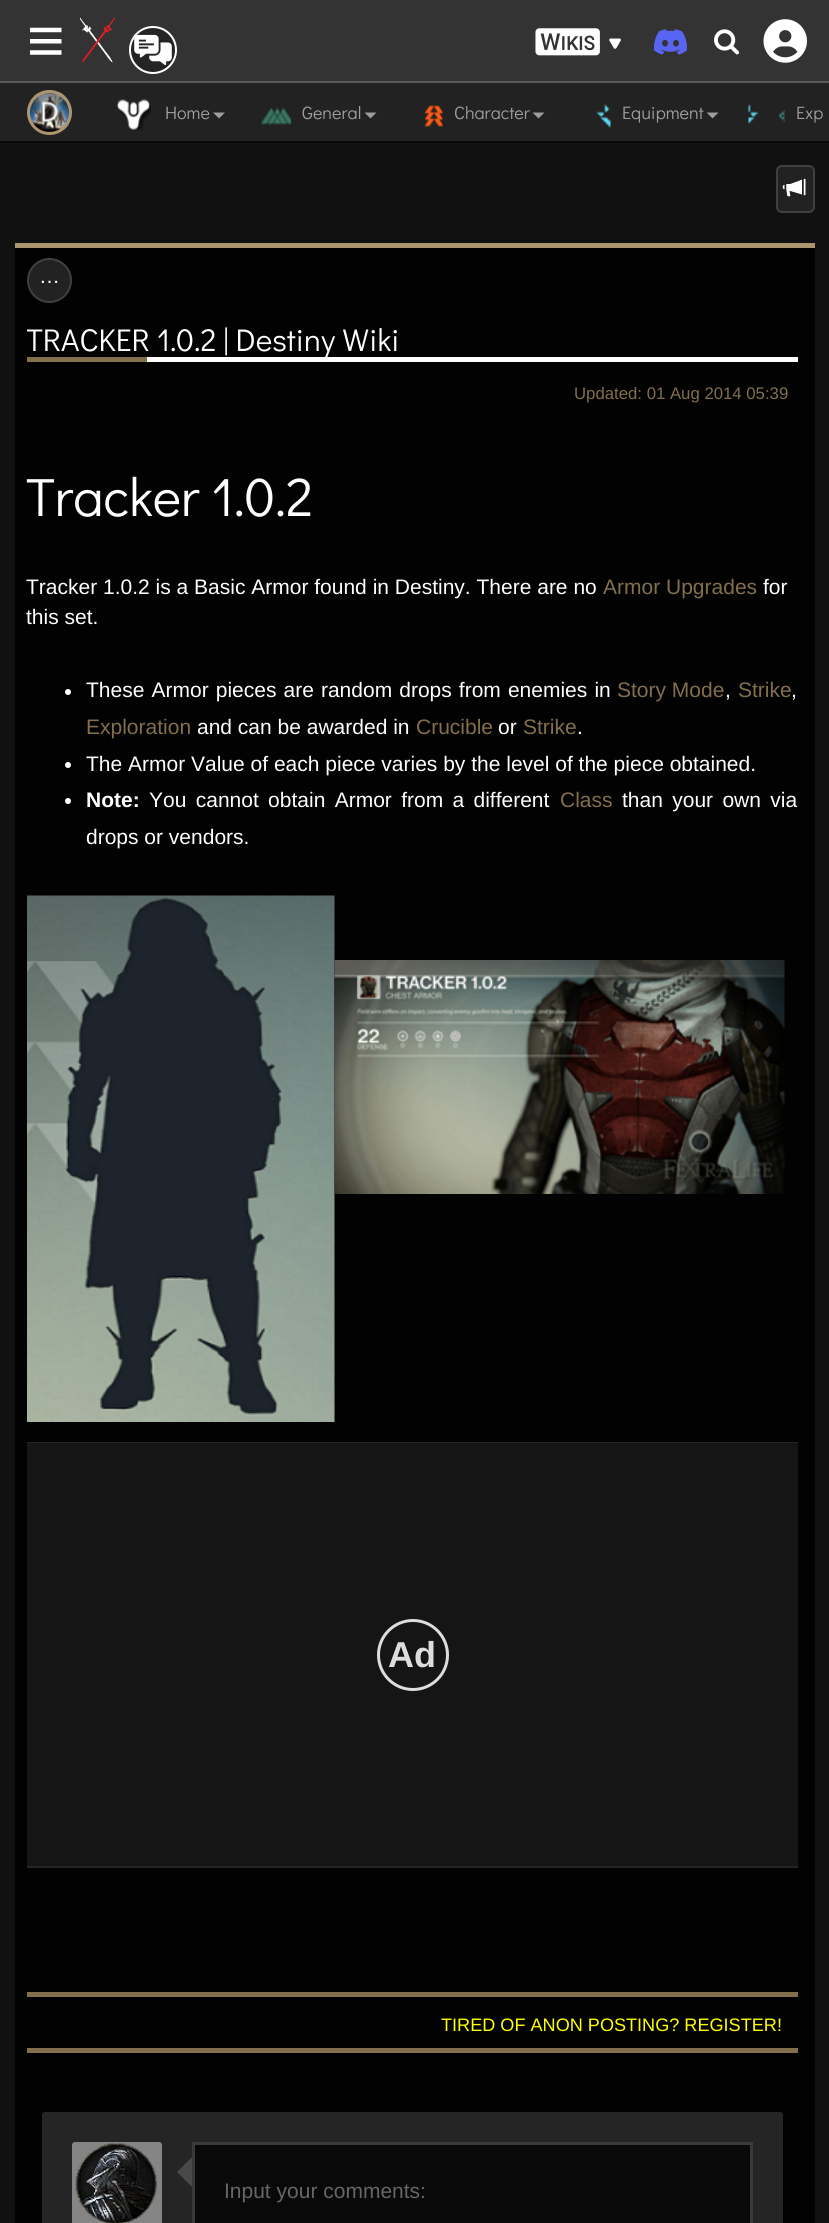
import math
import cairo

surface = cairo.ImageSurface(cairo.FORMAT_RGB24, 829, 2223)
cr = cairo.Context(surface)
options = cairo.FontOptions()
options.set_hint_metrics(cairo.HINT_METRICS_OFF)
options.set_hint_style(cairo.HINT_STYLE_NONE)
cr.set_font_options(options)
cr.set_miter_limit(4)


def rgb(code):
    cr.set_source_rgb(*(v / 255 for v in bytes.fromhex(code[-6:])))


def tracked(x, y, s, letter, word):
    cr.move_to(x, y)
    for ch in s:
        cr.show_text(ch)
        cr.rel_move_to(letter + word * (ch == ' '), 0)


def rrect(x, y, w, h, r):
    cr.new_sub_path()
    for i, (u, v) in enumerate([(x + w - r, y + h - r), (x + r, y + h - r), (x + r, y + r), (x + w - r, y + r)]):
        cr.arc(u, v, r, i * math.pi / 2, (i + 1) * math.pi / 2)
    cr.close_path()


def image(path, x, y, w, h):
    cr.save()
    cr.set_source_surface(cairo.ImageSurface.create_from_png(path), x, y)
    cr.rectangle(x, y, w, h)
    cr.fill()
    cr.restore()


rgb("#111111")
cr.paint()
rgb("#333333")
cr.rectangle(0, 0, 829, 81)
cr.fill()
rgb("#595959")
cr.rectangle(0, 81, 829, 2)
cr.fill()
image("img/1.png", 30, 27, 32, 28)
image("img/2.png", 80, 17, 36, 46)
rgb("#242424")
cr.arc(153, 50, 23, 0, 2 * math.pi)
cr.fill_preserve()
rgb("#ffffff")
cr.stroke()
image("img/3.png", 134, 34, 38, 31)
image("img/4.png", 535, 28, 86, 28)
image("img/5.png", 654, 29, 33, 26)
image("img/6.png", 714, 29, 26, 26)
image("img/7.png", 763, 19, 44, 44)
rgb("#222222")
cr.rectangle(0, 83, 829, 58)
cr.fill()
rgb("#080808")
cr.rectangle(0, 141, 829, 2)
cr.fill()
image("img/8.png", 30, 92, 39, 40)
cr.arc(49.5, 112.5, 21, 0, 2 * math.pi)
rgb("#ab966f")
cr.set_line_width(3)
cr.stroke()
image("img/9.png", 117, 99, 34, 31)
rgb("#9d9d9d")
cr.new_path()
cr.move_to(213, 112.5)
cr.line_to(225, 112.5)
cr.line_to(219, 118.5)
cr.close_path()
cr.fill()
image("img/10.png", 261, 107, 30, 18)
cr.new_path()
cr.move_to(364.5, 112.5)
cr.line_to(376.5, 112.5)
cr.line_to(370.5, 118.5)
cr.close_path()
cr.fill()
image("img/11.png", 425, 105, 18, 22)
cr.new_path()
cr.move_to(532.5, 112.5)
cr.line_to(544.5, 112.5)
cr.line_to(538.5, 118.5)
cr.close_path()
cr.fill()
image("img/12.png", 596, 104, 15, 24)
cr.new_path()
cr.move_to(706.5, 112.5)
cr.line_to(718.5, 112.5)
cr.line_to(712.5, 118.5)
cr.close_path()
cr.fill()
image("img/13.png", 748, 104, 37, 20)
rgb("#222222")
rrect(777, 166, 37, 46, 5)
cr.fill_preserve()
rgb("#404040")
cr.set_line_width(2)
cr.stroke()
image("img/14.png", 782, 178, 24, 19)
rgb("#020202")
cr.rectangle(15, 248, 800, 1975)
cr.fill()
rgb("#222222")
cr.arc(49.5, 280.5, 21.5, 0, 2 * math.pi)
cr.fill_preserve()
rgb("#404040")
cr.stroke()
for x, y, w, h, color in [
    (15, 243, 800, 5, "#ab966f"),
    (147, 357, 651, 5, "#ffffff"),
    (27, 357, 120, 5, "#826f4c"),
]:
    rgb(color)
    cr.rectangle(x, y, w, h)
    cr.fill()
rgb("#ffffff")
cr.arc(68, 692, 3, 0, 2 * math.pi)
cr.fill()
cr.arc(68, 765, 3, 0, 2 * math.pi)
cr.fill()
cr.arc(68, 801, 3, 0, 2 * math.pi)
cr.fill()
image("img/15.png", 27, 895, 308, 527)
image("img/16.png", 334, 960, 451, 234)
for x, y, w, h, color in [
    (27, 1442, 771, 1, "#242424"),
    (27, 1866, 771, 2, "#242424"),
    (27, 1443, 771, 423, "#151515"),
]:
    rgb(color)
    cr.rectangle(x, y, w, h)
    cr.fill()
cr.arc(413, 1655, 34.5, 0, 2 * math.pi)
rgb("#dddddd")
cr.set_line_width(3)
cr.stroke()
rgb("#826f4c")
cr.rectangle(27, 1992, 771, 5)
cr.fill()
cr.rectangle(27, 2048, 771, 5)
cr.fill()
rgb("#252525")
rrect(42, 2112, 741, 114, 3)
cr.fill()
rgb("#858585")
rrect(72, 2142, 90, 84, 3)
cr.fill()
image("img/17.png", 75, 2143, 83, 80)
rgb("#494949")
cr.new_path()
cr.move_to(192, 2157)
cr.line_to(192, 2187)
cr.line_to(177, 2172)
cr.close_path()
cr.fill()
rgb("#090909")
cr.rectangle(193.5, 2143.5, 558, 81)
cr.fill_preserve()
rgb("#393939")
cr.stroke()
cr.select_font_face("Didact Gothic")
cr.set_font_size(18)
rgb("#9d9d9d")
for x, y, s in [
    (165, 119, "Home"),
    (302, 119, "General"),
    (454, 119, "Character"),
    (622, 119, "Equipment"),
    (796, 119, "Exp"),
]:
    cr.move_to(x, y)
    cr.show_text(s)
cr.select_font_face("Liberation Sans")
cr.set_font_size(21)
rgb("#ffffff")
cr.move_to(39, 283)
cr.show_text("…")
cr.save()
cr.rectangle(27, 293, 777, 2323)
cr.clip()
cr.select_font_face("Didact Gothic")
cr.set_font_size(31.5)
cr.move_to(26, 351)
cr.show_text("TRACKER 1.0.2 | Destiny Wiki")
cr.restore()
cr.set_font_size(16.75)
rgb("#826f4c")
cr.move_to(574, 399)
cr.show_text("Updated: 01 Aug 2014 05:39")
cr.select_font_face("Didact Gothic")
cr.set_font_size(54)
rgb("#ffffff")
cr.move_to(26, 516)
cr.show_text("Tracker 1.0.2")
cr.select_font_face("Liberation Sans")
cr.set_font_size(21)
cr.move_to(26, 594)
cr.show_text("Tracker 1.0.2 is a Basic Armor found in Destiny. There are no")
rgb("#826f4c")
cr.move_to(603, 594)
cr.show_text("Armor Upgrades")
rgb("#ffffff")
cr.move_to(763, 594)
cr.show_text("for")
cr.move_to(26, 624)
cr.show_text("this set.")
tracked(86, 697, "These Armor pieces are random drops from enemies in", 0, 1.25)
rgb("#826f4c")
cr.move_to(617, 697)
cr.show_text("Story Mode")
cr.move_to(738, 697)
cr.show_text("Strike")
rgb("#ffffff")
cr.move_to(725, 697)
cr.show_text(",")
cr.move_to(791, 697)
cr.show_text(",")
rgb("#826f4c")
cr.move_to(86, 734)
cr.show_text("Exploration")
rgb("#ffffff")
cr.move_to(197, 734)
cr.show_text("and can be awarded in")
rgb("#826f4c")
cr.move_to(416, 734)
cr.show_text("Crucible")
rgb("#ffffff")
cr.move_to(498, 734)
cr.show_text("or")
rgb("#826f4c")
cr.move_to(523, 734)
cr.show_text("Strike")
rgb("#ffffff")
cr.move_to(577, 734)
cr.show_text(".")
cr.move_to(86, 771)
cr.show_text("The Armor Value of each piece varies by the level of the piece obtained.")
cr.select_font_face("Liberation Sans", cairo.FONT_SLANT_NORMAL, cairo.FONT_WEIGHT_BOLD)
cr.move_to(86, 807)
cr.show_text("Note:")
cr.select_font_face("Liberation Sans")
tracked(149, 807, "You cannot obtain Armor from a different", 0, 3.5)
rgb("#826f4c")
cr.move_to(560, 807)
cr.show_text("Class")
rgb("#ffffff")
tracked(622, 807, "than your own via", 0, 3.5)
cr.move_to(86, 844)
cr.show_text("drops or vendors.")
cr.select_font_face("Liberation Sans", cairo.FONT_SLANT_NORMAL, cairo.FONT_WEIGHT_BOLD)
cr.set_font_size(36)
rgb("#dddddd")
cr.move_to(388, 1667)
cr.show_text("Ad")
cr.select_font_face("Liberation Sans")
cr.set_font_size(18.1)
rgb("#ffff00")
cr.move_to(441, 2031)
cr.show_text("TIRED OF ANON POSTING? REGISTER!")
cr.set_font_size(21)
rgb("#666666")
cr.move_to(224, 2198)
cr.show_text("Input your comments:")
surface.write_to_png("page.png")
